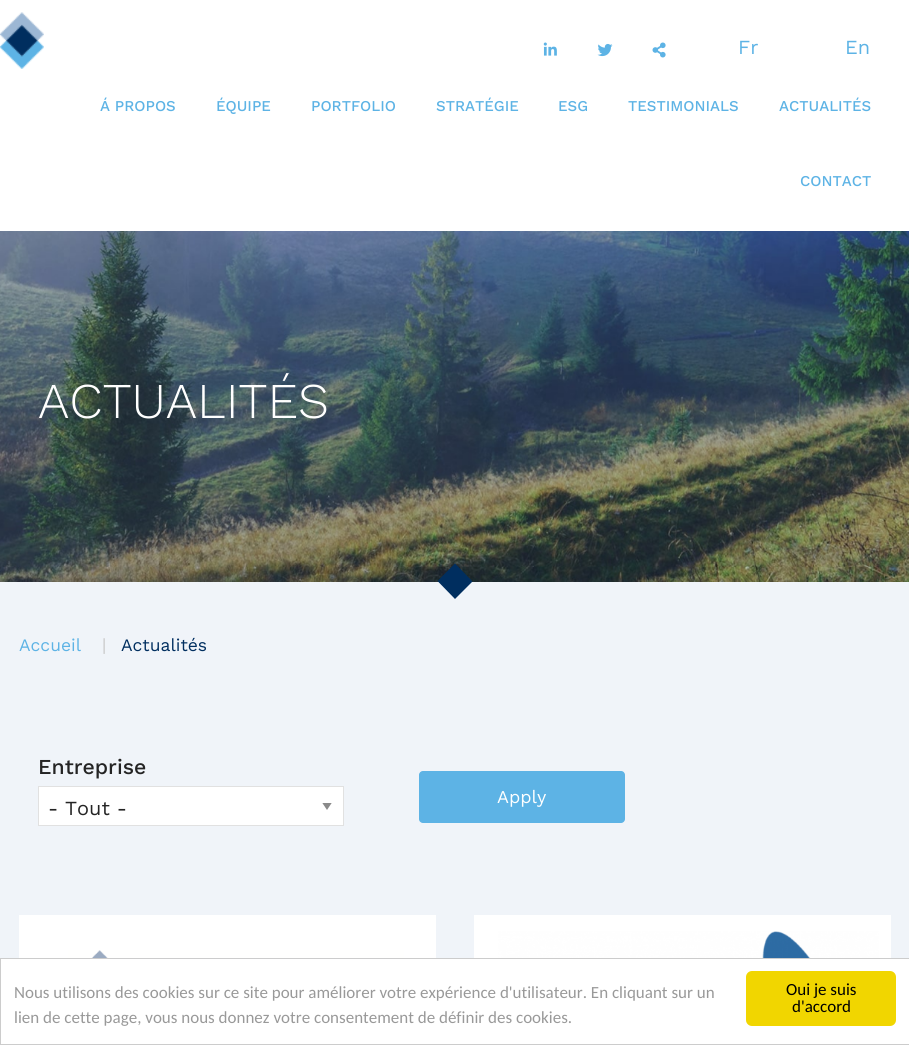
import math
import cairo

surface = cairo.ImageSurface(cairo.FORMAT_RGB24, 909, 1045)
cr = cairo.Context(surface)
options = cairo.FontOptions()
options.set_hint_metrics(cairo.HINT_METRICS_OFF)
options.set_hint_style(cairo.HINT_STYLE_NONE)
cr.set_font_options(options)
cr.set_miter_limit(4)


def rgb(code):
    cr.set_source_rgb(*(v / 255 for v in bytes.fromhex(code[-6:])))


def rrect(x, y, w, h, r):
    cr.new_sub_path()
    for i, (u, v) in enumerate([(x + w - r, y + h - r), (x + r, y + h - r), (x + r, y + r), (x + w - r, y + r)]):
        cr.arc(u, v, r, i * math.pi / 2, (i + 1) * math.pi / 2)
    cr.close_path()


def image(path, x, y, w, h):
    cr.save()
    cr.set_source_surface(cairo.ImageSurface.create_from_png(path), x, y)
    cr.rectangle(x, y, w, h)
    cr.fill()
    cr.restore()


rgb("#f0f4f9")
cr.paint()
rgb("#ffffff")
cr.rectangle(0, 0, 909, 231)
cr.fill()
image("img/1.png", 0, 12, 44, 57)
image("img/2.png", 543, 42, 14, 14)
image("img/3.png", 597, 43, 16, 14)
image("img/4.png", 652, 42, 14, 16)
image("img/5.png", 0, 231, 909, 351)
rgb("#002e5f")
cr.new_path()
cr.move_to(437.5, 581)
cr.line_to(455, 563.5)
cr.line_to(472.5, 581.5)
cr.line_to(455, 599)
cr.close_path()
cr.fill()
rgb("#ffffff")
cr.rectangle(39, 787, 304, 38)
cr.fill()
cr.save()
cr.rectangle(321, 803, 12, 7)
cr.clip()
rgb("#8a8a8a")
cr.new_path()
cr.move_to(322, 802.5)
cr.line_to(332, 802.5)
cr.line_to(327, 810)
cr.close_path()
cr.fill()
cr.restore()
cr.rectangle(38.5, 786.5, 305, 39)
rgb("#e1e1e1")
cr.set_line_width(1)
cr.stroke()
rgb("#5db3e5")
rrect(419, 771, 206, 52, 4)
cr.fill()
rgb("#ffffff")
cr.rectangle(19, 915, 417, 43)
cr.fill()
image("img/6.png", 68, 950, 336, 8)
cr.rectangle(474, 915, 417, 43)
cr.fill()
image("img/7.png", 498, 931, 381, 27)
cr.rectangle(0.5, 958.5, 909, 86)
cr.fill_preserve()
rgb("#cccccc")
cr.stroke()
rgb("#f1d600")
rrect(746, 971, 150, 55, 6)
cr.fill()
cr.select_font_face("Work Sans")
cr.set_font_size(20)
rgb("#5db3e5")
cr.move_to(738, 54)
cr.show_text("Fr")
cr.move_to(845, 54)
cr.show_text("En")
cr.select_font_face("Work Sans Medium")
cr.set_font_size(15)
for x, y, s in [
    (100, 111, "Á PROPOS"),
    (216, 111, "ÉQUIPE"),
    (311, 111, "PORTFOLIO"),
    (436, 111, "STRATÉGIE"),
    (558, 111, "ESG"),
    (628, 111, "TESTIMONIALS"),
    (779, 111, "ACTUALITÉS"),
    (800, 186, "CONTACT"),
]:
    cr.move_to(x, y)
    cr.show_text(s)
cr.select_font_face("Work Sans Light")
cr.set_font_size(50)
rgb("#ffffff")
cr.move_to(38, 418)
cr.show_text("ACTUALITÉS")
cr.select_font_face("Work Sans")
cr.set_font_size(17.5)
rgb("#5db3e5")
cr.move_to(19, 651)
cr.show_text("Accueil")
rgb("#c8c8c8")
cr.move_to(102, 651)
cr.show_text("|")
rgb("#002e5f")
cr.move_to(121, 651)
cr.show_text("Actualités")
cr.select_font_face("Work Sans Medium")
cr.set_font_size(21.25)
rgb("#242424")
cr.move_to(38, 774)
cr.show_text("Entreprise")
cr.select_font_face("Work Sans")
cr.set_font_size(20)
cr.move_to(48, 815)
cr.show_text("- Tout -")
cr.set_font_size(18)
rgb("#ffffff")
cr.move_to(497, 803)
cr.show_text("Apply")
cr.select_font_face("Carlito")
cr.set_font_size(17)
rgb("#999999")
cr.move_to(14, 998)
cr.show_text("Nous utilisons des cookies sur ce site pour améliorer votre expérience d'utilisateur. En cliquant sur un")
cr.move_to(14, 1023)
cr.show_text("lien de cette page, vous nous donnez votre consentement de définir des cookies.")
rgb("#000000")
cr.move_to(786, 995)
cr.show_text("Oui je suis")
cr.move_to(792, 1012)
cr.show_text("d'accord")
surface.write_to_png("page.png")
